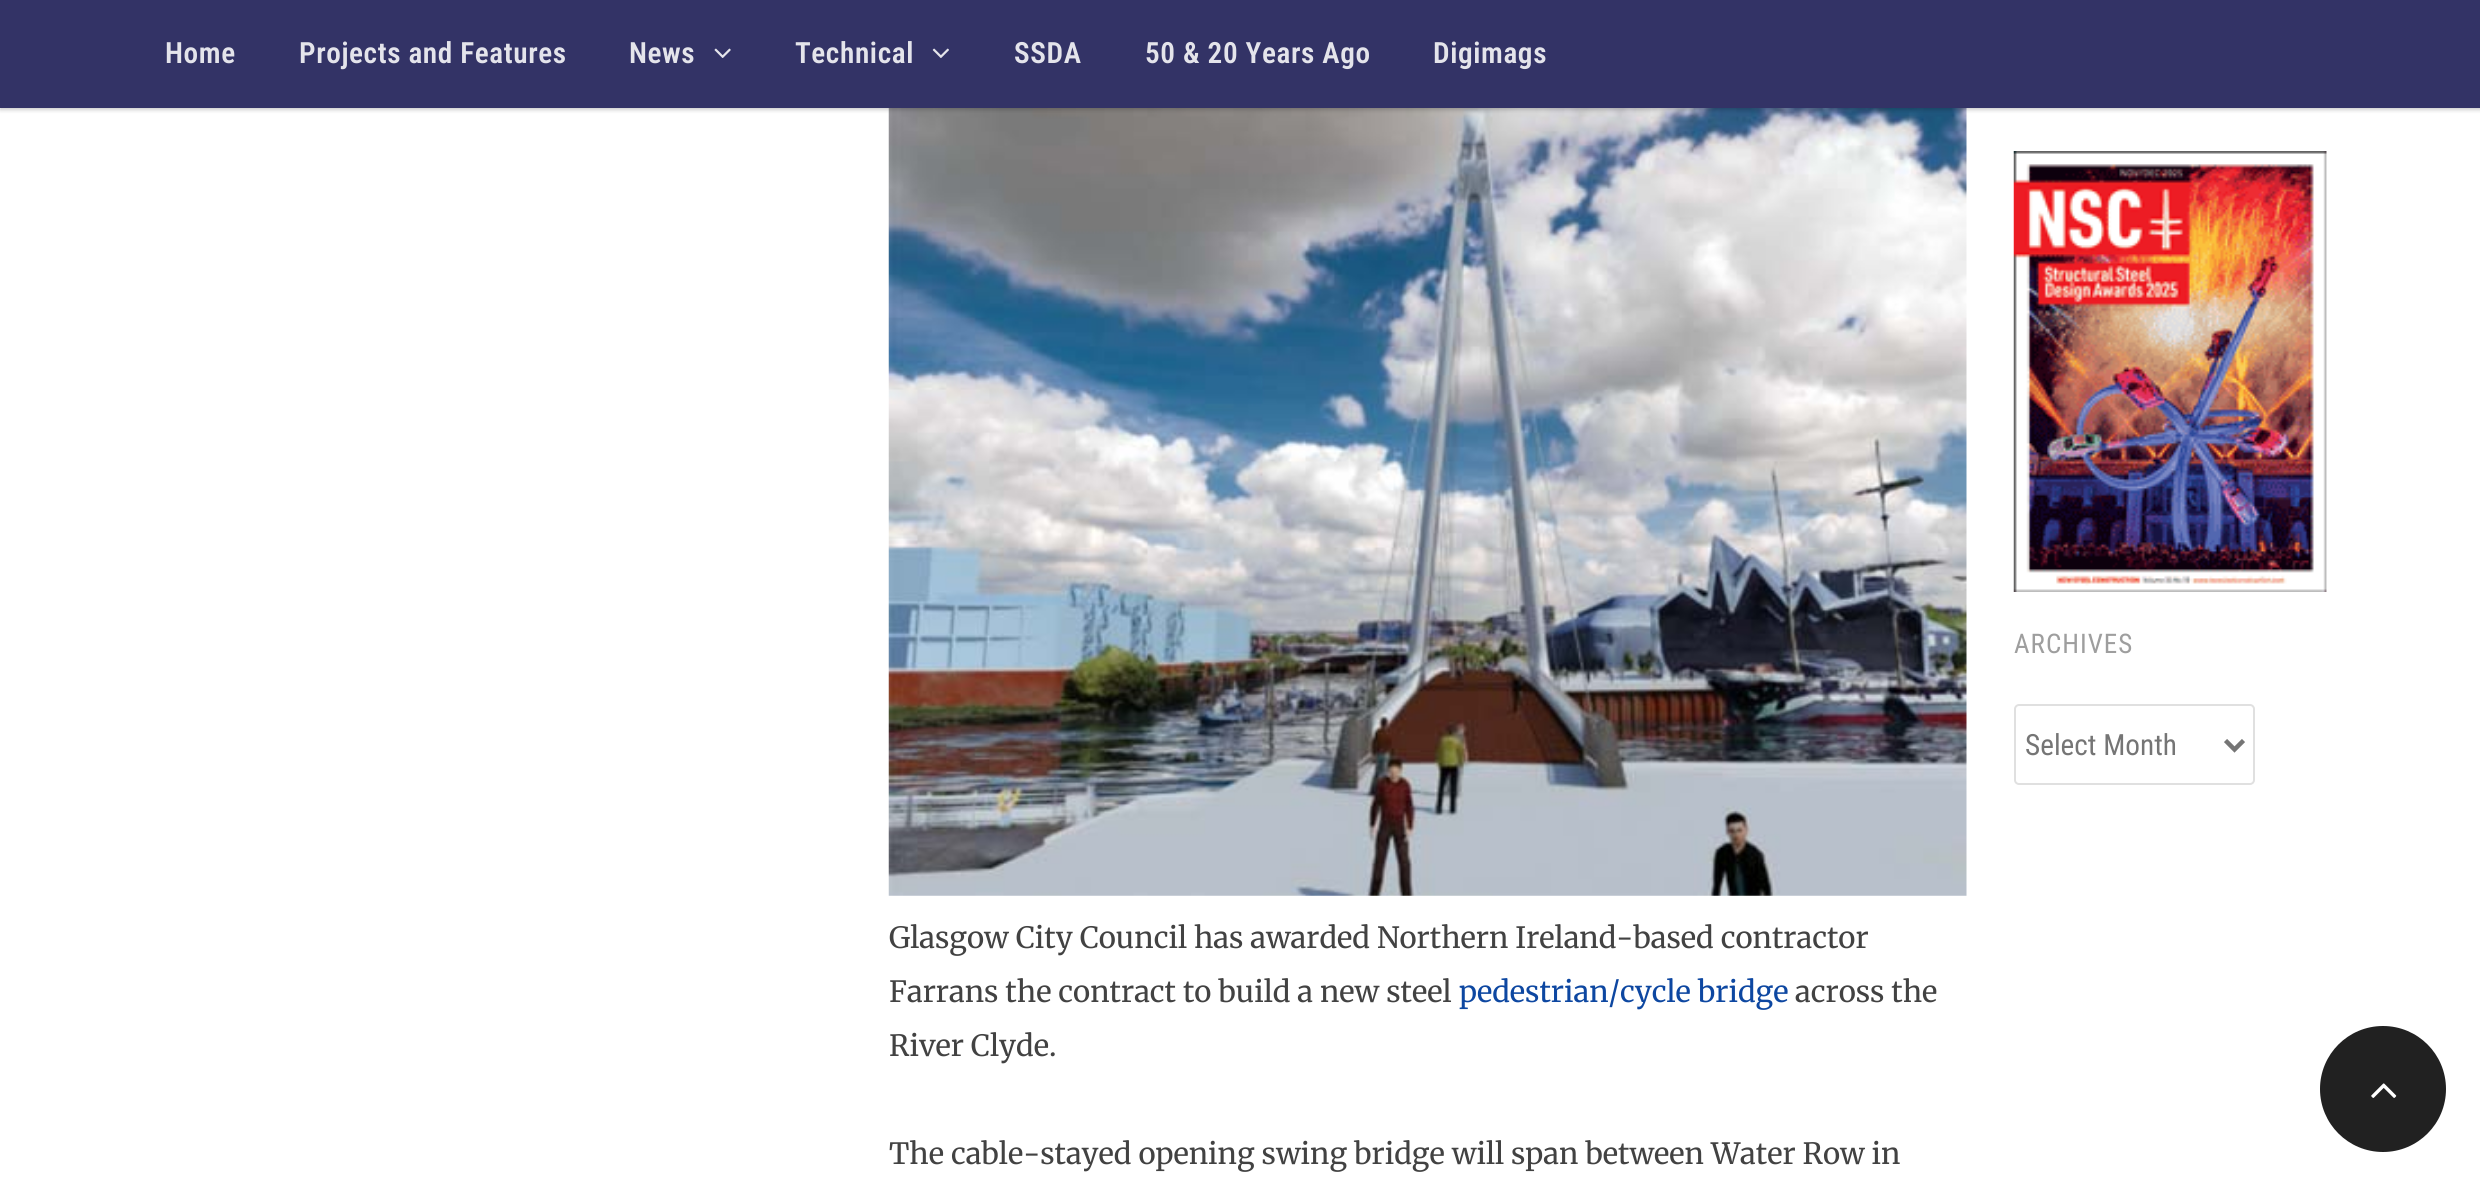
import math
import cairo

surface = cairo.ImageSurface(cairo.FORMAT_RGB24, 2480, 1185)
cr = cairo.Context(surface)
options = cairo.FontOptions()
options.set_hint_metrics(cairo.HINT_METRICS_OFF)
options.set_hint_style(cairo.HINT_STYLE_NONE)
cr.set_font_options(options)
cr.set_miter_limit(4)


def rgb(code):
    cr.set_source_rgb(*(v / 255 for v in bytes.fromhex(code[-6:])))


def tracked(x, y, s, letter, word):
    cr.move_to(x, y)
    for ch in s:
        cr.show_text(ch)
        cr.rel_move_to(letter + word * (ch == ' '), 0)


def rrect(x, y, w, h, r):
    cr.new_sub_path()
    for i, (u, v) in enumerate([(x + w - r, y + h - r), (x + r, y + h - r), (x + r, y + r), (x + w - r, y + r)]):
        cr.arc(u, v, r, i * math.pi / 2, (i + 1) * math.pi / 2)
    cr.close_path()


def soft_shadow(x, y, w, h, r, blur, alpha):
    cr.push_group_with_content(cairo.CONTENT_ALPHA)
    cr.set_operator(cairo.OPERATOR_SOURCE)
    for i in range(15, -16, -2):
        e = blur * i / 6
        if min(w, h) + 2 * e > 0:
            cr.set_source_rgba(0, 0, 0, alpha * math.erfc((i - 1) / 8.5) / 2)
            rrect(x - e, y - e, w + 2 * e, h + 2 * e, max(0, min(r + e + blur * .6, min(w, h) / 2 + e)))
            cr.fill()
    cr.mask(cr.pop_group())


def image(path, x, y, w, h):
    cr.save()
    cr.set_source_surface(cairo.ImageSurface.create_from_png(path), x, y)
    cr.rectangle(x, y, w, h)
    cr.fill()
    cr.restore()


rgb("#ffffff")
cr.paint()
image("img/4.png", 888, 108, 1079, 788)
rgb("#000000")
soft_shadow(0, 2, 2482, 108, 0, 2, 0.2)
rgb("#333366")
cr.rectangle(0, 0, 2480, 108)
cr.fill()
image("img/1.png", 714, 48, 17, 10)
image("img/2.png", 932, 48, 17, 10)
image("img/3.png", 2013, 151, 314, 441)
rrect(2015, 705, 239, 79, 4)
rgb("#e0e0e0")
cr.stroke()
cr.new_path()
cr.move_to(2225.5, 740.5)
cr.line_to(2234.5, 749.5)
cr.line_to(2243.5, 740.5)
rgb("#757575")
cr.set_line_width(4.5)
cr.stroke()
rgb("#212121")
cr.arc(2383, 1089, 63, 0, 2 * math.pi)
cr.fill()
image("img/5.png", 2371, 1083, 26, 15)
cr.select_font_face("Roboto Condensed SemiBold")
cr.set_font_size(29.25)
rgb("#e4e4eb")
for x, y, s in [
    (165, 63, "Home"),
    (299, 63, "Projects and Features"),
    (629, 63, "News"),
    (795, 63, "Technical"),
    (1014, 63, "SSDA"),
    (1145, 63, "50 & 20 Years Ago"),
    (1433, 63, "Digimags"),
]:
    tracked(x, y, s, 0.6, 0)
cr.select_font_face("Roboto Condensed")
cr.set_font_size(27)
rgb("#9e9e9e")
tracked(2014, 653, "ARCHIVES", 1, 0)
cr.set_font_size(29.25)
rgb("#757575")
cr.move_to(2025, 755)
cr.show_text("Select Month")
cr.select_font_face("Merriweather")
rgb("#424242")
cr.move_to(889, 948)
cr.show_text("Glasgow City Council has awarded Northern Ireland-based contractor")
cr.move_to(889, 1002)
cr.show_text("Farrans the contract to build a new steel")
rgb("#0d47a1")
cr.move_to(1459, 1002)
cr.show_text("pedestrian/cycle bridge")
rgb("#424242")
for x, y, s in [
    (1795, 1002, "across the"),
    (889, 1056, "River Clyde."),
    (889, 1164, "The cable-stayed opening swing bridge will span between Water Row in"),
]:
    cr.move_to(x, y)
    cr.show_text(s)
surface.write_to_png("page.png")
